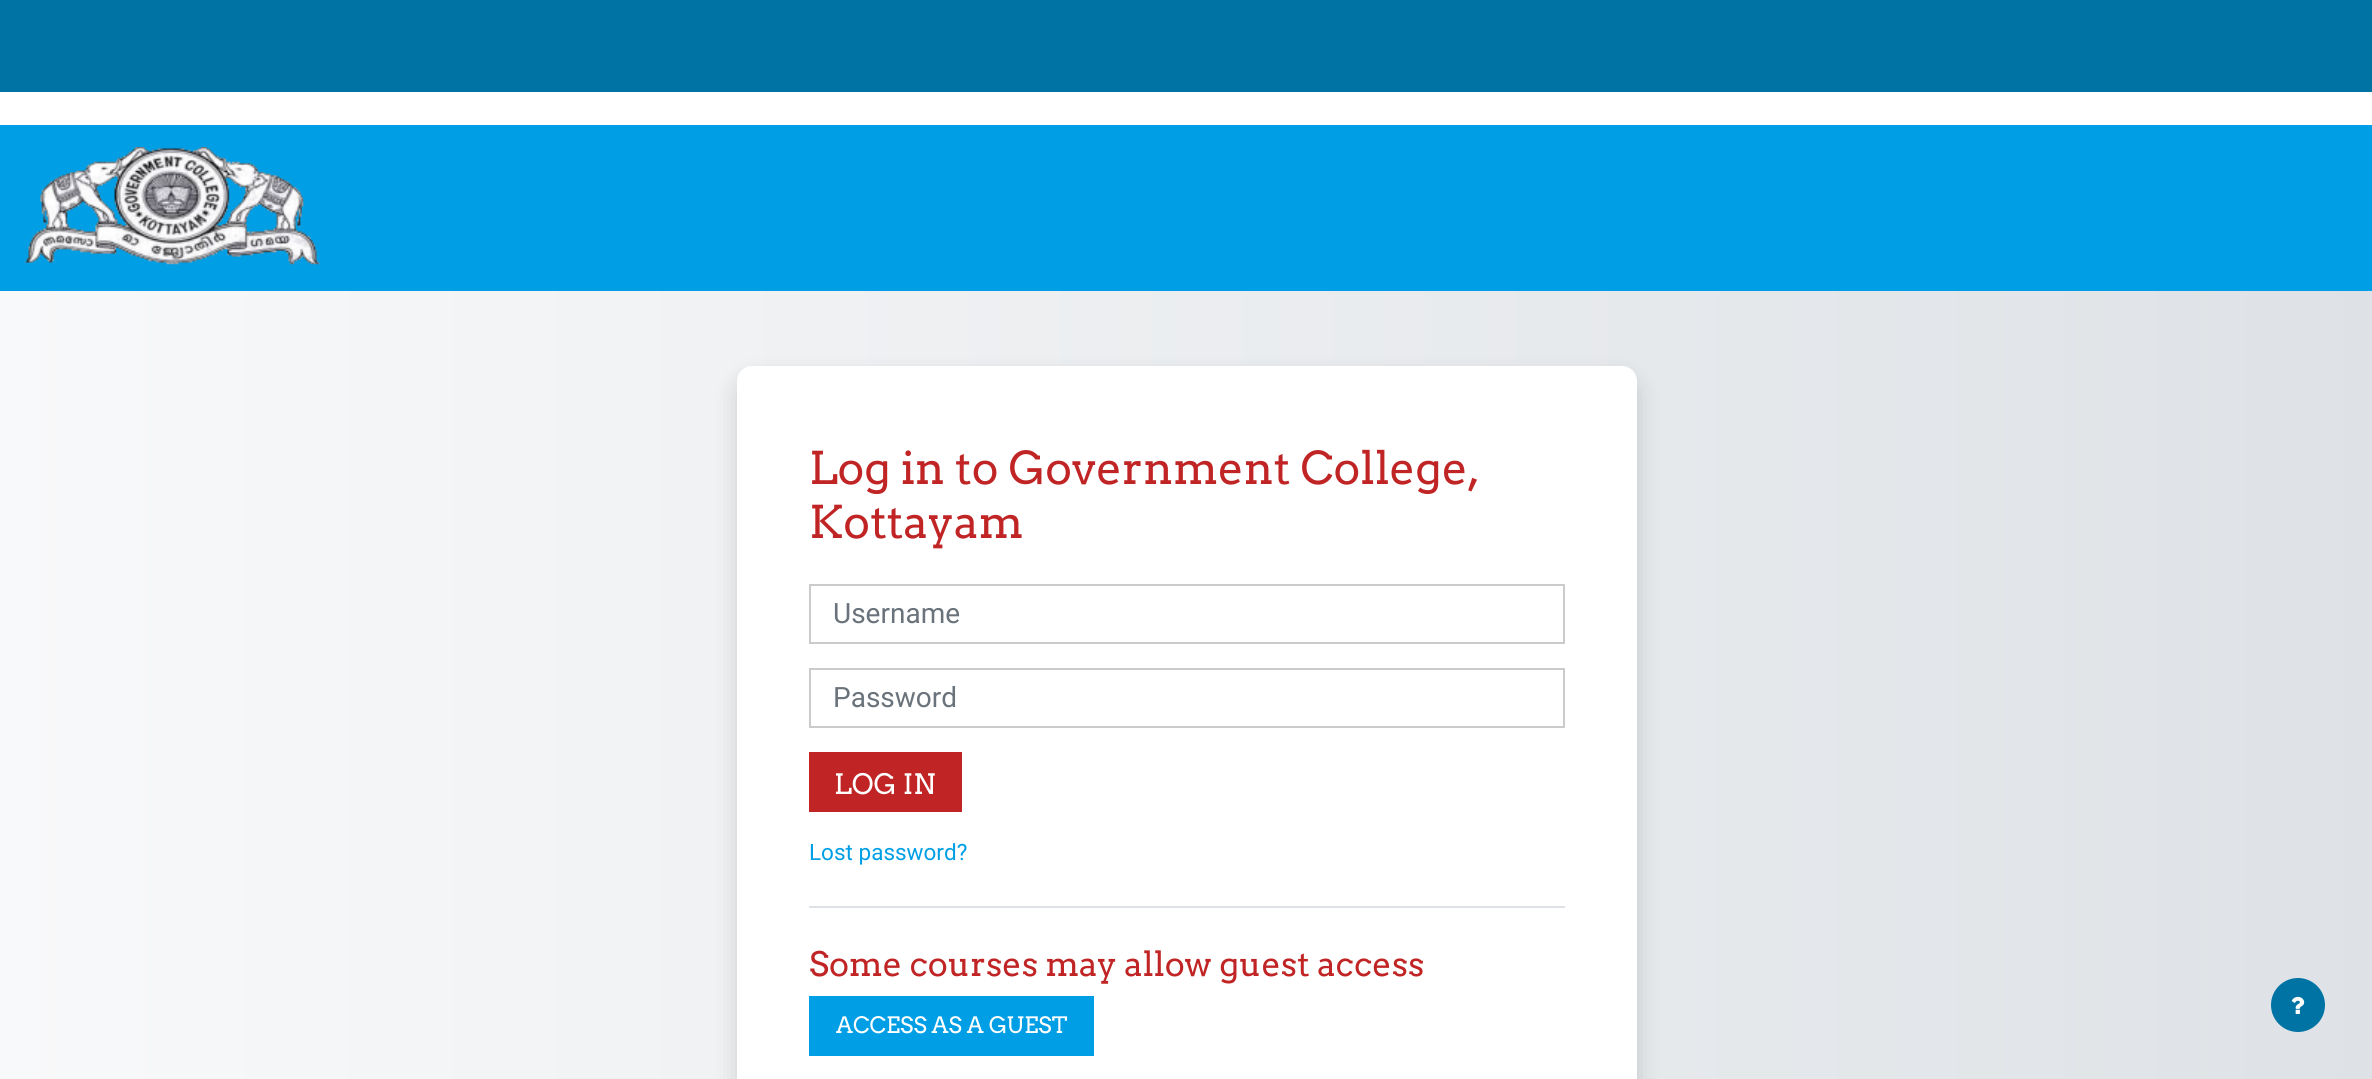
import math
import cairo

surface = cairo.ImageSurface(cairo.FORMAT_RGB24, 2372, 1079)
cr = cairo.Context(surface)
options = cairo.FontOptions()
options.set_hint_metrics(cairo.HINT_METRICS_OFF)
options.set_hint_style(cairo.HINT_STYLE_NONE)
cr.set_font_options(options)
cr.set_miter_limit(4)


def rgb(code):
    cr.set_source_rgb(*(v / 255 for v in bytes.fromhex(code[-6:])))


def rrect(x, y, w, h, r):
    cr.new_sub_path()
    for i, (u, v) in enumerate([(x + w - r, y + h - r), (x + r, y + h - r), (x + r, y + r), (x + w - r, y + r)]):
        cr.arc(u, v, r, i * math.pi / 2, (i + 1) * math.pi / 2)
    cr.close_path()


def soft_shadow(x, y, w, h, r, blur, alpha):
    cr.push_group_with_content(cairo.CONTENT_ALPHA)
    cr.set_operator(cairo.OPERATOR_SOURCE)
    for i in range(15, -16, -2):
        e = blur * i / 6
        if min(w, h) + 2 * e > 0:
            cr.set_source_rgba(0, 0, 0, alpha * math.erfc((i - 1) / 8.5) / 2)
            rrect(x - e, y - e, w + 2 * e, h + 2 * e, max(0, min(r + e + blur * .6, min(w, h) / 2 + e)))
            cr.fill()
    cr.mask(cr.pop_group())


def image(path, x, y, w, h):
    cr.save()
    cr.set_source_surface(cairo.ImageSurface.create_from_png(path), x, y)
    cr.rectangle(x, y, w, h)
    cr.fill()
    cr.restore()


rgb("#ffffff")
cr.paint()
rgb("#0073a5")
cr.rectangle(0, 0, 2372, 92)
cr.fill()
rgb("#009fe5")
cr.rectangle(0, 125, 2372, 166)
cr.fill()
image("img/1.png", 24, 147, 296, 118)
gradient = cairo.LinearGradient(0, 814, 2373, 814)
gradient.add_color_stop_rgba(0, 0.973, 0.976, 0.98, 1)
gradient.add_color_stop_rgba(1, 0.871, 0.886, 0.902, 1)
cr.set_source(gradient)
cr.rectangle(0, 291, 2372, 788)
cr.fill()
rgb("#000000")
soft_shadow(737, 378, 900, 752, 15, 12, 0.15)
rgb("#ffffff")
rrect(737, 366, 900, 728, 15)
cr.fill()
cr.rectangle(810, 585, 754, 58)
rgb("#cbcbcb")
cr.stroke()
cr.rectangle(810, 669, 754, 58)
cr.stroke()
for x, y, w, h, color in [
    (809, 752, 153, 60, "#c02424"),
    (809, 906, 756, 2, "#dee2e6"),
    (809, 996, 285, 60, "#009fe5"),
]:
    rgb(color)
    cr.rectangle(x, y, w, h)
    cr.fill()
rgb("#0073a5")
cr.arc(2298, 1005, 27, 0, 2 * math.pi)
cr.fill()
image("img/2.png", 2291, 996, 14, 18)
cr.select_font_face("Arvo")
cr.set_font_size(45)
rgb("#c02424")
cr.move_to(809, 484)
cr.show_text("Log in to Government College,")
cr.move_to(809, 538)
cr.show_text("Kottayam")
cr.select_font_face("Roboto")
cr.set_font_size(28)
rgb("#6a737b")
cr.move_to(833, 623)
cr.show_text("Username")
cr.move_to(833, 707)
cr.show_text("Password")
cr.select_font_face("Arvo")
rgb("#ffffff")
cr.move_to(834, 794)
cr.show_text("LOG IN")
cr.select_font_face("Roboto")
cr.set_font_size(22.5)
rgb("#009fe5")
cr.move_to(809, 860)
cr.show_text("Lost password?")
cr.select_font_face("Arvo")
cr.set_font_size(33.75)
rgb("#c02424")
cr.move_to(809, 976)
cr.show_text("Some courses may allow guest access")
cr.set_font_size(22.5)
rgb("#ffffff")
cr.move_to(836, 1033)
cr.show_text("ACCESS AS A GUEST")
surface.write_to_png("page.png")
